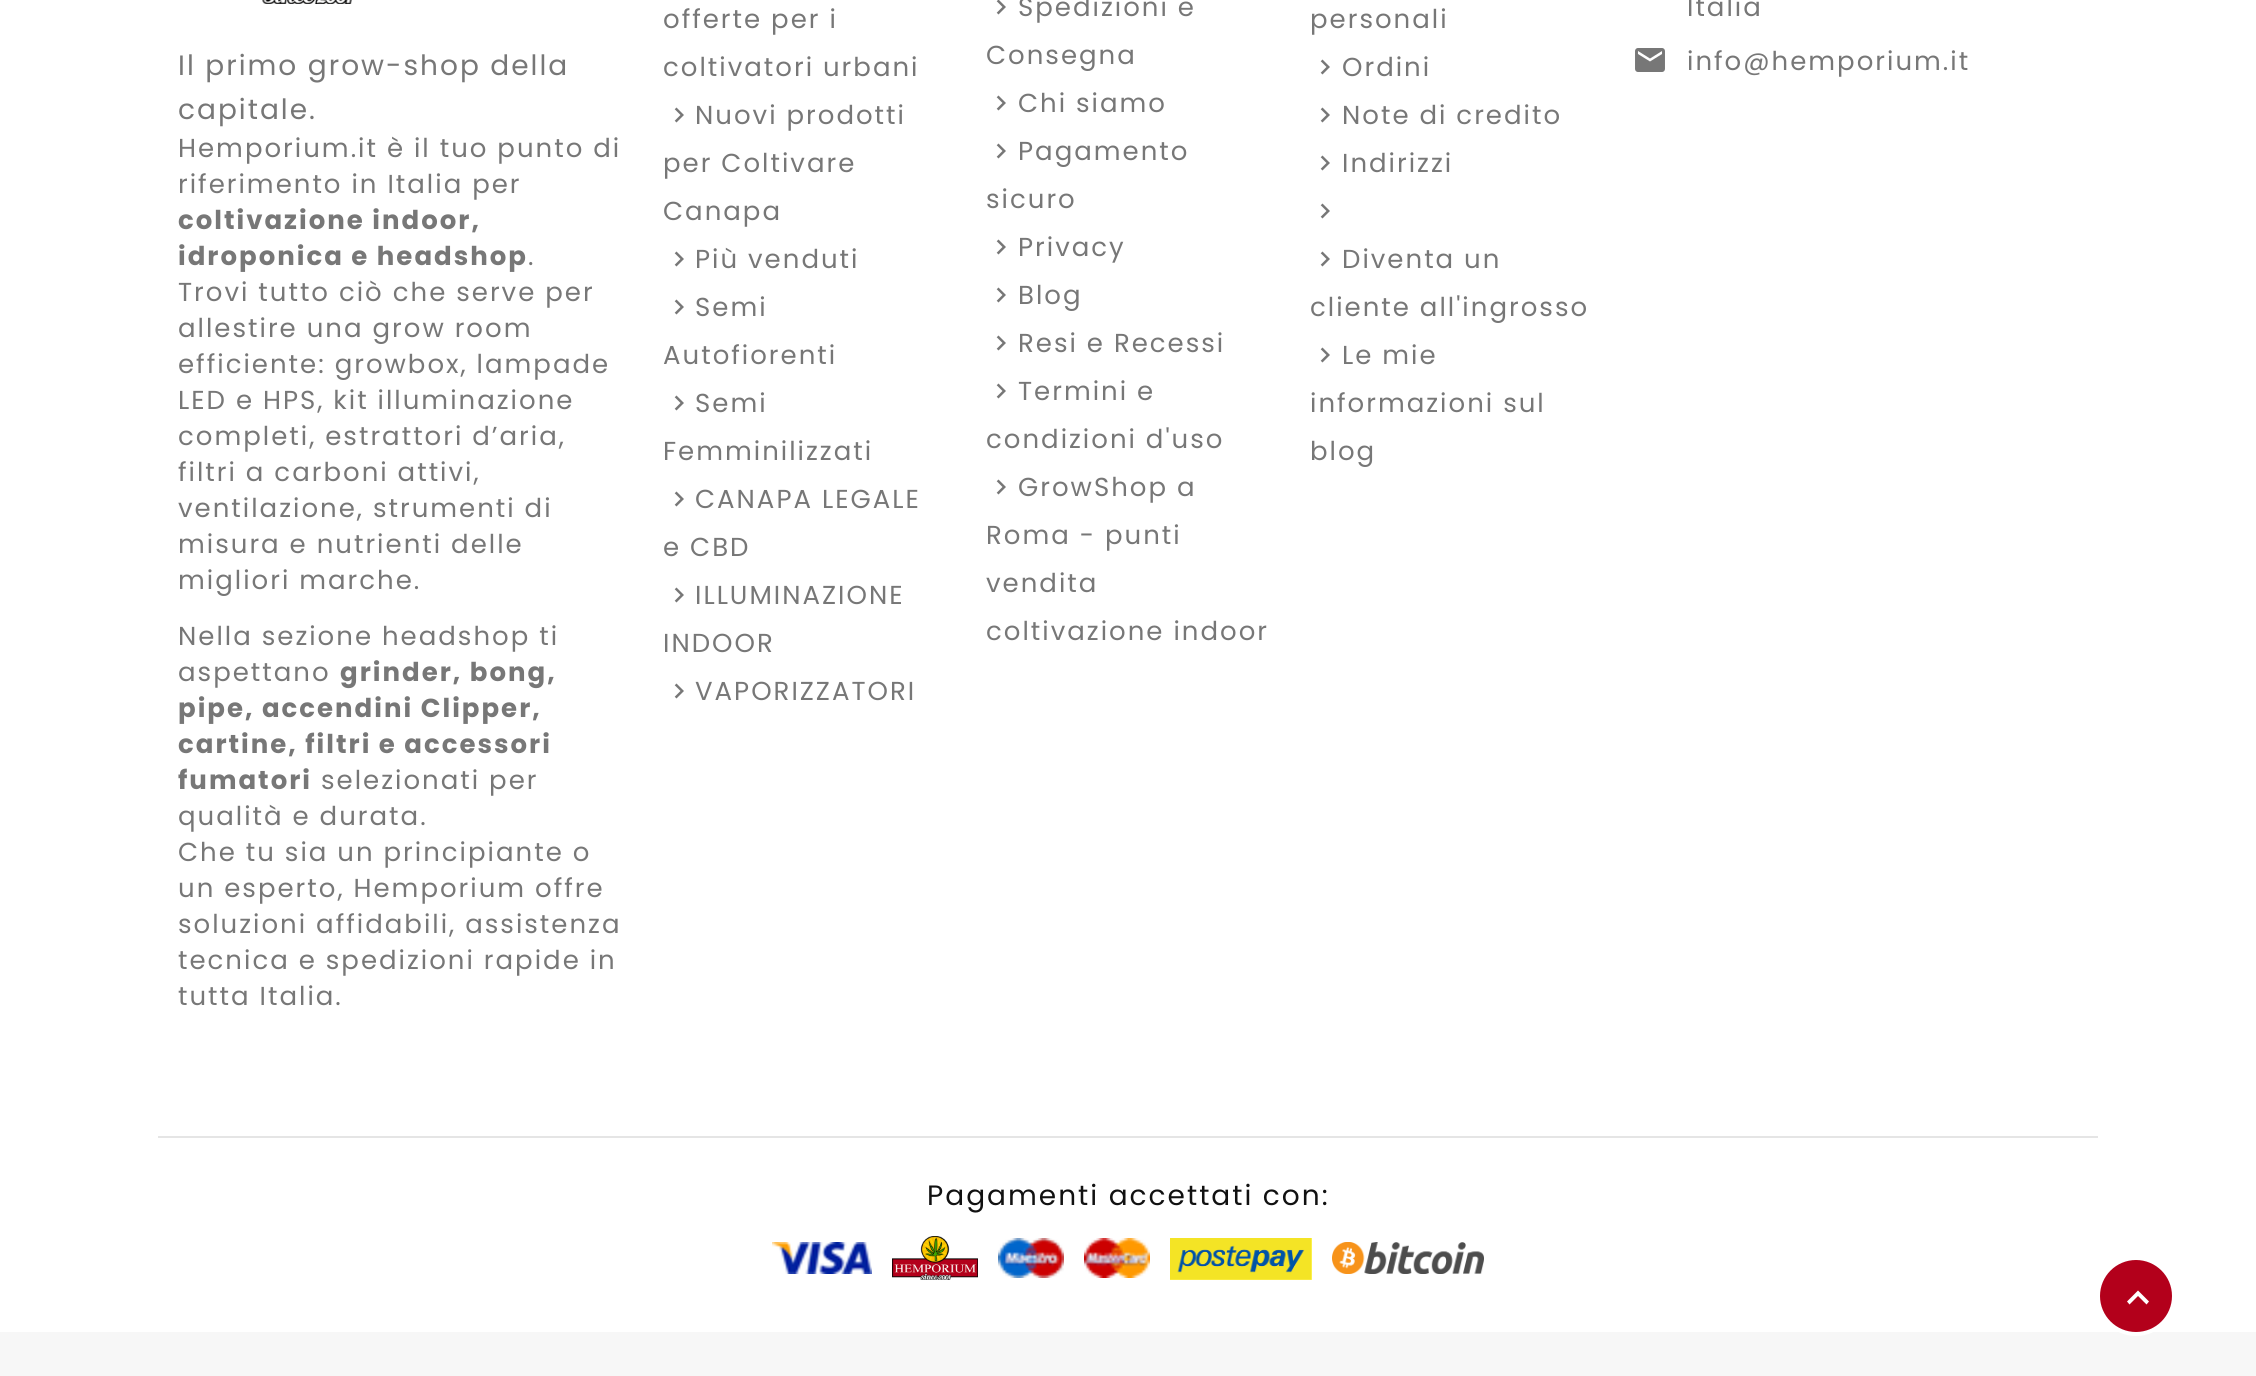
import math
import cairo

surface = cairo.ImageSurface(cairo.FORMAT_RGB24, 2256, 1376)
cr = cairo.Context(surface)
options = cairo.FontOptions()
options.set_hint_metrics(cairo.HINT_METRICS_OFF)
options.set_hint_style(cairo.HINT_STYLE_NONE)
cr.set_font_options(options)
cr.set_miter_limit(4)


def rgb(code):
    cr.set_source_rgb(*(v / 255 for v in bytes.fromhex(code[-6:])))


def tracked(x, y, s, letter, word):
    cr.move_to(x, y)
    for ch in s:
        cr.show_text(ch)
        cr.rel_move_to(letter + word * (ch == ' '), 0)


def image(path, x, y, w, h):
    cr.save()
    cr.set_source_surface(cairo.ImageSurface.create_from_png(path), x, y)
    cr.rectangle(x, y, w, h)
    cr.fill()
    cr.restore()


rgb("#f7f7f7")
cr.paint()
rgb("#ffffff")
cr.rectangle(0, 0, 2256, 1332)
cr.fill()
image("img/1.png", 262, 0, 90, 4)
image("img/2.png", 674, 107, 10, 16)
image("img/2.png", 674, 251, 10, 16)
image("img/2.png", 674, 299, 10, 16)
image("img/2.png", 674, 395, 10, 16)
image("img/2.png", 674, 491, 10, 16)
image("img/2.png", 674, 587, 10, 16)
image("img/2.png", 674, 683, 10, 16)
image("img/3.png", 996, 0, 10, 15)
image("img/2.png", 996, 95, 10, 16)
image("img/2.png", 996, 143, 10, 16)
image("img/2.png", 996, 239, 10, 16)
image("img/2.png", 996, 287, 10, 16)
image("img/2.png", 996, 335, 10, 16)
image("img/2.png", 996, 383, 10, 16)
image("img/2.png", 996, 479, 10, 16)
image("img/2.png", 1320, 59, 10, 16)
image("img/2.png", 1320, 107, 10, 16)
image("img/2.png", 1320, 155, 10, 16)
image("img/2.png", 1320, 203, 10, 16)
image("img/2.png", 1320, 251, 10, 16)
image("img/2.png", 1320, 347, 10, 16)
image("img/4.png", 1635, 48, 30, 24)
rgb("#e5e5e5")
cr.rectangle(158, 1136, 1940, 2)
cr.fill()
image("img/5.png", 772, 1242, 100, 32)
image("img/6.png", 892, 1236, 86, 44)
image("img/7.png", 998, 1238, 66, 40)
image("img/8.png", 1084, 1238, 66, 40)
image("img/9.png", 1170, 1238, 142, 42)
image("img/10.png", 1332, 1242, 152, 32)
rgb("#b3001b")
cr.arc(2136, 1296, 38, 0, 2 * math.pi)
cr.fill_preserve()
rgb("#ffffff")
cr.set_line_width(4)
cr.stroke()
cr.new_path()
cr.move_to(2129.5, 1304.5)
cr.line_to(2127, 1301.5)
cr.line_to(2138, 1290.5)
cr.line_to(2149, 1301.5)
cr.line_to(2146.5, 1304.5)
cr.line_to(2138, 1296)
cr.close_path()
cr.fill()
cr.select_font_face("Poppins")
cr.set_font_size(28)
rgb("#777777")
tracked(178, 75, "Il primo grow-shop della", 2, 0)
tracked(178, 119, "capitale.", 2, 0)
cr.set_font_size(26)
tracked(178, 157, "Hemporium.it è il tuo punto di", 2, 0)
tracked(178, 193, "riferimento in Italia per", 2, 0)
cr.select_font_face("Poppins", cairo.FONT_SLANT_NORMAL, cairo.FONT_WEIGHT_BOLD)
tracked(178, 229, "coltivazione indoor,", 2, 0)
tracked(178, 265, "idroponica e headshop", 2, 0)
cr.select_font_face("Poppins")
for x, y, s in [
    (528, 265, "."),
    (178, 301, "Trovi tutto ciò che serve per"),
    (178, 337, "allestire una grow room"),
    (178, 373, "efficiente: growbox, lampade"),
    (178, 409, "LED e HPS, kit illuminazione"),
    (178, 445, "completi, estrattori d’aria,"),
    (178, 481, "filtri a carboni attivi,"),
    (178, 517, "ventilazione, strumenti di"),
    (178, 553, "misura e nutrienti delle"),
    (178, 589, "migliori marche."),
    (178, 645, "Nella sezione headshop ti"),
    (178, 681, "aspettano"),
]:
    tracked(x, y, s, 2, 0)
cr.select_font_face("Poppins", cairo.FONT_SLANT_NORMAL, cairo.FONT_WEIGHT_BOLD)
for x, y, s in [
    (340, 681, "grinder, bong,"),
    (178, 717, "pipe, accendini Clipper,"),
    (178, 753, "cartine, filtri e accessori"),
    (178, 789, "fumatori"),
]:
    tracked(x, y, s, 2, 0)
cr.select_font_face("Poppins")
for x, y, s in [
    (321, 789, "selezionati per"),
    (178, 825, "qualità e durata."),
    (178, 861, "Che tu sia un principiante o"),
    (178, 897, "un esperto, Hemporium offre"),
    (178, 933, "soluzioni affidabili, assistenza"),
    (178, 969, "tecnica e spedizioni rapide in"),
    (178, 1005, "tutta Italia."),
    (663, 28, "offerte per i"),
    (663, 76, "coltivatori urbani"),
    (695, 124, "Nuovi prodotti"),
    (663, 172, "per Coltivare"),
    (663, 220, "Canapa"),
    (695, 268, "Più venduti"),
    (695, 316, "Semi"),
    (663, 364, "Autofiorenti"),
    (695, 412, "Semi"),
    (663, 460, "Femminilizzati"),
    (695, 508, "CANAPA LEGALE"),
    (663, 556, "e CBD"),
    (695, 604, "ILLUMINAZIONE"),
    (663, 652, "INDOOR"),
    (695, 700, "VAPORIZZATORI"),
    (1018, 16, "Spedizioni e"),
    (986, 64, "Consegna"),
    (1018, 112, "Chi siamo"),
    (1018, 160, "Pagamento"),
    (986, 208, "sicuro"),
    (1018, 256, "Privacy"),
    (1018, 304, "Blog"),
    (1018, 352, "Resi e Recessi"),
    (1018, 400, "Termini e"),
    (986, 448, "condizioni d'uso"),
    (1018, 496, "GrowShop a"),
    (986, 544, "Roma - punti"),
    (986, 592, "vendita"),
    (986, 640, "coltivazione indoor"),
    (1310, 28, "personali"),
    (1342, 76, "Ordini"),
    (1342, 124, "Note di credito"),
    (1342, 172, "Indirizzi"),
    (1342, 268, "Diventa un"),
    (1310, 316, "cliente all'ingrosso"),
    (1342, 364, "Le mie"),
    (1310, 412, "informazioni sul"),
    (1310, 460, "blog"),
    (1687, 16, "Italia"),
    (1687, 70, "info@hemporium.it"),
]:
    tracked(x, y, s, 2, 0)
cr.set_font_size(28)
rgb("#111111")
tracked(927, 1205, "Pagamenti accettati con:", 2, 0)
surface.write_to_png("page.png")
